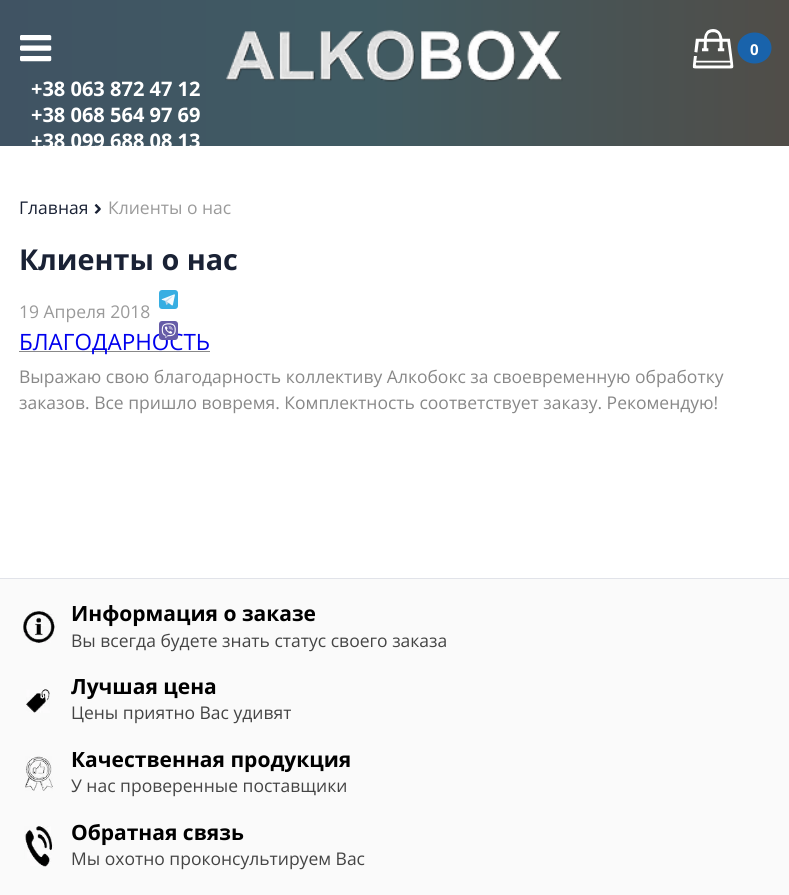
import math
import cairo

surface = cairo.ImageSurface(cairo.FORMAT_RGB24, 789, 895)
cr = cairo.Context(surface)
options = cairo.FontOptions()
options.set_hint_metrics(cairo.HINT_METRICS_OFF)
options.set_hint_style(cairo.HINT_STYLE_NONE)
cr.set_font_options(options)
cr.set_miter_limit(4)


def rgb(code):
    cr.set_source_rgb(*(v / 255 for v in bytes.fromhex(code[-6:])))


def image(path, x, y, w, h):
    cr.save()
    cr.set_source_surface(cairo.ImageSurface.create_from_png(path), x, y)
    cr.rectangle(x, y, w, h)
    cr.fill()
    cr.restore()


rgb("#ffffff")
cr.paint()
gradient = cairo.LinearGradient(0, 73, 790, 73)
gradient.add_color_stop_rgba(0, 0.251, 0.325, 0.388, 1)
gradient.add_color_stop_rgba(0.46, 0.251, 0.357, 0.388, 1)
gradient.add_color_stop_rgba(1, 0.314, 0.302, 0.282, 1)
cr.set_source(gradient)
cr.rectangle(0, 0, 789, 146)
cr.fill()
image("img/1.png", 20, 35, 32, 27)
image("img/2.png", 225, 29, 338, 53)
image("img/3.png", 692, 29, 42, 40)
rgb("#1963ab")
cr.new_path()
cr.move_to(754.5, 32.5)
cr.curve_to(764, 32.5, 771.5, 39.5, 771.5, 48)
cr.curve_to(771.5, 56.5, 764, 63.5, 754.5, 63.5)
cr.curve_to(745, 63.5, 737.5, 56.5, 737.5, 48)
cr.curve_to(737.5, 39.5, 745, 32.5, 754.5, 32.5)
cr.close_path()
cr.fill()
image("img/4.png", 159, 290, 19, 19)
image("img/6.png", 94, 204, 7, 10)
for x, y, w, h, color in [
    (19, 351, 191, 1, "#888888"),
    (0, 579, 789, 316, "#fafafa"),
    (0, 578, 789, 1, "#e1e3e9"),
]:
    rgb(color)
    cr.rectangle(x, y, w, h)
    cr.fill()
image("img/7.png", 22, 610, 35, 33)
image("img/8.png", 26, 689, 24, 24)
image("img/9.png", 25, 756, 28, 35)
image("img/10.png", 24, 826, 30, 41)
cr.select_font_face("Open Sans", cairo.FONT_SLANT_NORMAL, cairo.FONT_WEIGHT_BOLD)
cr.set_font_size(15)
rgb("#ffffff")
cr.move_to(750, 55)
cr.show_text("0")
cr.set_font_size(20)
for x, y, s in [
    (31, 96, "+38 063 872 47 12"),
    (31, 122, "+38 068 564 97 69"),
    (31, 148, "+38 099 688 08 13"),
]:
    cr.move_to(x, y)
    cr.show_text(s)
cr.select_font_face("Open Sans")
cr.set_font_size(17.5)
rgb("#1a2235")
cr.move_to(19, 214)
cr.show_text("Главная")
rgb("#9a9a9a")
cr.move_to(108, 214)
cr.show_text("Клиенты о нас")
cr.select_font_face("Open Sans", cairo.FONT_SLANT_NORMAL, cairo.FONT_WEIGHT_BOLD)
cr.set_font_size(28.75)
rgb("#1a2235")
cr.move_to(19, 270)
cr.show_text("Клиенты о нас")
cr.select_font_face("Open Sans")
cr.set_font_size(17.5)
rgb("#9a9a9a")
cr.move_to(19, 318)
cr.show_text("19 Апреля 2018")
cr.set_font_size(22.5)
rgb("#0000ee")
cr.move_to(19, 350)
cr.show_text("БЛАГОДАРНОСТЬ")
image("img/5.png", 159, 321, 19, 19)
cr.set_font_size(17.5)
rgb("#888888")
cr.move_to(19, 383)
cr.show_text("Выражаю свою благодарность коллективу Алкобокс за своевременную обработку")
cr.move_to(19, 409)
cr.show_text("заказов. Все пришло вовремя. Комплектность соответствует заказу. Рекомендую!")
cr.select_font_face("Open Sans", cairo.FONT_SLANT_NORMAL, cairo.FONT_WEIGHT_BOLD)
cr.set_font_size(21)
rgb("#000000")
cr.move_to(71, 621)
cr.show_text("Информация о заказе")
cr.select_font_face("Open Sans")
cr.set_font_size(17.5)
rgb("#444444")
cr.move_to(71, 647)
cr.show_text("Вы всегда будете знать статус своего заказа")
cr.select_font_face("Open Sans", cairo.FONT_SLANT_NORMAL, cairo.FONT_WEIGHT_BOLD)
cr.set_font_size(21)
rgb("#000000")
cr.move_to(71, 694)
cr.show_text("Лучшая цена")
cr.select_font_face("Open Sans")
cr.set_font_size(17.5)
rgb("#444444")
cr.move_to(71, 719)
cr.show_text("Цены приятно Вас удивят")
cr.select_font_face("Open Sans", cairo.FONT_SLANT_NORMAL, cairo.FONT_WEIGHT_BOLD)
cr.set_font_size(21)
rgb("#000000")
cr.move_to(71, 767)
cr.show_text("Качественная продукция")
cr.select_font_face("Open Sans")
cr.set_font_size(17.5)
rgb("#444444")
cr.move_to(71, 792)
cr.show_text("У нас проверенные поставщики")
cr.select_font_face("Open Sans", cairo.FONT_SLANT_NORMAL, cairo.FONT_WEIGHT_BOLD)
cr.set_font_size(21)
rgb("#000000")
cr.move_to(71, 840)
cr.show_text("Обратная связь")
cr.select_font_face("Open Sans")
cr.set_font_size(17.5)
rgb("#444444")
cr.move_to(71, 865)
cr.show_text("Мы охотно проконсультируем Вас")
surface.write_to_png("page.png")
